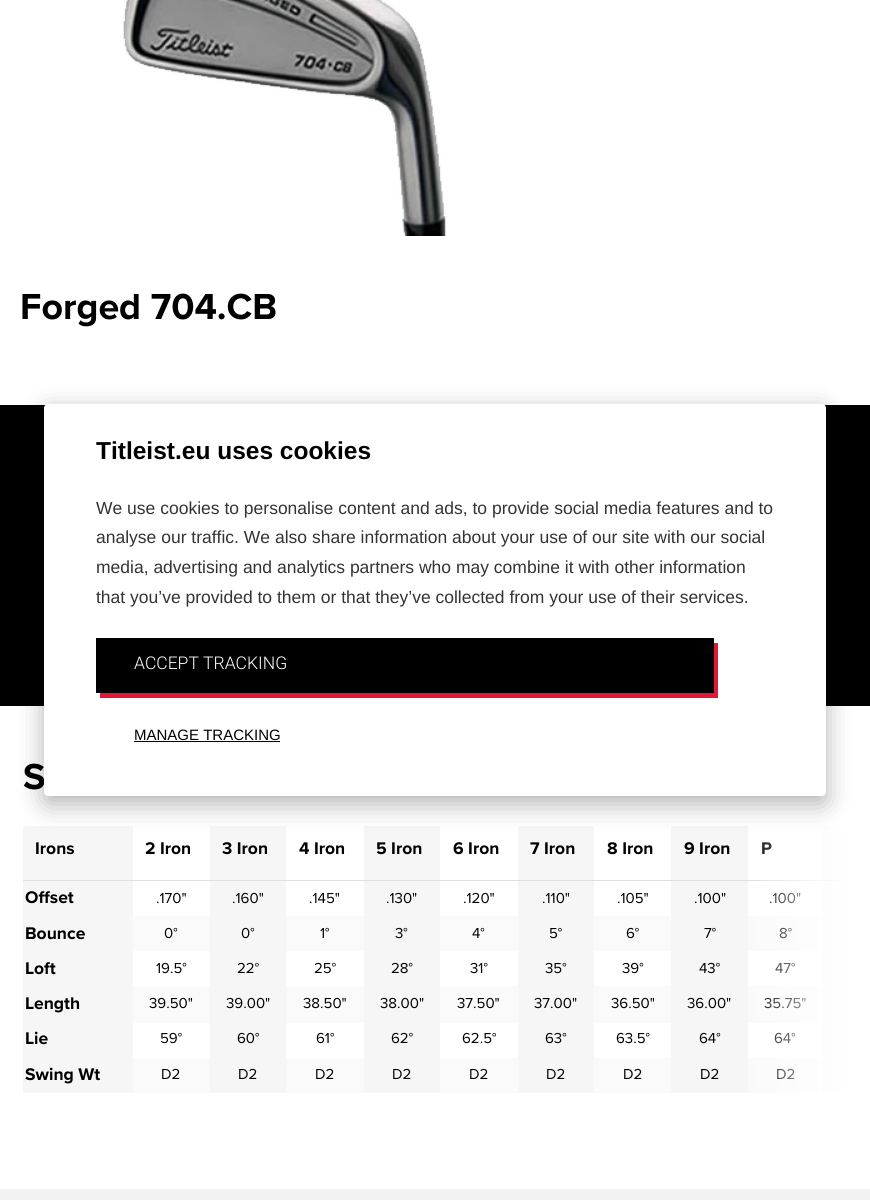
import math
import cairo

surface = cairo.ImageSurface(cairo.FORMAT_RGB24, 870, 1200)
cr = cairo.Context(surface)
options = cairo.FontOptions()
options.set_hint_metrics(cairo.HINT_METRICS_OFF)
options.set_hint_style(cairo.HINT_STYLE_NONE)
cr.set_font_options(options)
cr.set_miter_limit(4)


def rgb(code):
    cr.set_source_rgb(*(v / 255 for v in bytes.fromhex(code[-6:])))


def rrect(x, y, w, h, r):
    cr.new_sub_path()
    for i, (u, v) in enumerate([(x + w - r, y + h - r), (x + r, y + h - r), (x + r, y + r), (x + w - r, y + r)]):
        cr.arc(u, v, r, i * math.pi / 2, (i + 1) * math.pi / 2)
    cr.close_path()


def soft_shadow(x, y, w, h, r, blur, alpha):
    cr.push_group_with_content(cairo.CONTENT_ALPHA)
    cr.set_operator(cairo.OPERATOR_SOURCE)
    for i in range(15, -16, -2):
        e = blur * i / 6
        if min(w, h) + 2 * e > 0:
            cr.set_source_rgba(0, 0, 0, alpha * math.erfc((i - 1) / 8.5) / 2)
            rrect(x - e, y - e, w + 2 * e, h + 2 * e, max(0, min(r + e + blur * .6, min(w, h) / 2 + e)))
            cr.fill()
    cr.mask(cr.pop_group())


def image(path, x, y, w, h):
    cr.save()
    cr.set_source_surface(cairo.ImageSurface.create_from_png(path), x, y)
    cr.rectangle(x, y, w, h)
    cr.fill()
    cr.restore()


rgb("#ffffff")
cr.paint()
image("img/1.png", 123, 0, 324, 236)
for x, y, w, h, color in [
    (0, 405, 870, 301, "#000000"),
    (23, 880, 825, 1, "#e3dede"),
    (23, 826, 110, 54, "#f6f6f6"),
    (210, 826, 76, 54, "#f6f6f6"),
    (364, 826, 76, 54, "#f6f6f6"),
    (518, 826, 76, 54, "#f6f6f6"),
    (671, 826, 77, 54, "#f6f6f6"),
    (823, 826, 24, 54, "#f6f6f6"),
    (23, 881, 110, 212, "#f6f6f6"),
    (210, 881, 76, 35, "#f6f6f6"),
    (364, 881, 76, 35, "#f6f6f6"),
    (518, 881, 76, 35, "#f6f6f6"),
    (671, 881, 77, 35, "#f6f6f6"),
    (823, 881, 24, 212, "#f6f6f6"),
    (133, 916, 690, 35, "#fafafa"),
    (210, 916, 76, 70, "#f6f6f6"),
    (364, 916, 76, 70, "#f6f6f6"),
    (518, 916, 76, 70, "#f6f6f6"),
    (671, 916, 77, 70, "#f6f6f6"),
    (133, 986, 690, 37, "#fafafa"),
    (210, 986, 76, 72, "#f6f6f6"),
    (364, 986, 76, 72, "#f6f6f6"),
    (518, 986, 76, 72, "#f6f6f6"),
    (671, 986, 77, 72, "#f6f6f6"),
    (133, 1058, 690, 35, "#fafafa"),
    (210, 1058, 76, 35, "#f6f6f6"),
    (364, 1058, 76, 35, "#f6f6f6"),
    (518, 1058, 76, 35, "#f6f6f6"),
    (671, 1058, 77, 35, "#f6f6f6"),
    (0, 1189, 870, 11, "#f2f2f2"),
]:
    rgb(color)
    cr.rectangle(x, y, w, h)
    cr.fill()
cr.select_font_face("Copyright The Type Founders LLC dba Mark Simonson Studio", cairo.FONT_SLANT_NORMAL, cairo.FONT_WEIGHT_BOLD)
cr.set_font_size(37.5)
rgb("#000000")
cr.move_to(20, 319)
cr.show_text("Forged 704.CB")
cr.move_to(23, 789)
cr.show_text("S")
cr.set_font_size(17.5)
for x, y, s in [
    (35, 854, "Irons"),
    (145, 854, "2 Iron"),
    (222, 854, "3 Iron"),
    (299, 854, "4 Iron"),
    (376, 854, "5 Iron"),
    (453, 854, "6 Iron"),
    (530, 854, "7 Iron"),
    (607, 854, "8 Iron"),
    (684, 854, "9 Iron"),
    (761, 854, "P"),
    (25, 903, "Offset"),
]:
    cr.move_to(x, y)
    cr.show_text(s)
cr.select_font_face("Copyright The Type Founders LLC dba Mark Simonson Studio")
cr.set_font_size(15)
for x, y, s in [
    (156, 903, ".170\""),
    (232, 903, ".160\""),
    (309, 903, ".145\""),
    (386, 903, ".130\""),
    (463, 903, ".120\""),
    (542, 903, ".110\""),
    (617, 903, ".105\""),
    (694, 903, ".100\""),
    (769, 903, ".100\""),
]:
    cr.move_to(x, y)
    cr.show_text(s)
cr.select_font_face("Copyright The Type Founders LLC dba Mark Simonson Studio", cairo.FONT_SLANT_NORMAL, cairo.FONT_WEIGHT_BOLD)
cr.set_font_size(17.5)
cr.move_to(25, 939)
cr.show_text("Bounce")
cr.select_font_face("Copyright The Type Founders LLC dba Mark Simonson Studio")
cr.set_font_size(15)
for x, y, s in [
    (164, 938, "0°"),
    (241, 938, "0°"),
    (320, 938, "1°"),
    (395, 938, "3°"),
    (472, 938, "4°"),
    (549, 938, "5°"),
    (626, 938, "6°"),
    (704, 938, "7°"),
    (779, 938, "8°"),
]:
    cr.move_to(x, y)
    cr.show_text(s)
cr.select_font_face("Copyright The Type Founders LLC dba Mark Simonson Studio", cairo.FONT_SLANT_NORMAL, cairo.FONT_WEIGHT_BOLD)
cr.set_font_size(17.5)
cr.move_to(25, 974)
cr.show_text("Loft")
cr.select_font_face("Copyright The Type Founders LLC dba Mark Simonson Studio")
cr.set_font_size(15)
for x, y, s in [
    (156, 973, "19.5°"),
    (237, 973, "22°"),
    (314, 973, "25°"),
    (391, 973, "28°"),
    (470, 973, "31°"),
    (545, 973, "35°"),
    (622, 973, "39°"),
    (699, 973, "43°"),
    (775, 973, "47°"),
]:
    cr.move_to(x, y)
    cr.show_text(s)
cr.select_font_face("Copyright The Type Founders LLC dba Mark Simonson Studio", cairo.FONT_SLANT_NORMAL, cairo.FONT_WEIGHT_BOLD)
cr.set_font_size(17.5)
cr.move_to(25, 1009)
cr.show_text("Length")
cr.select_font_face("Copyright The Type Founders LLC dba Mark Simonson Studio")
cr.set_font_size(15)
for x, y, s in [
    (149, 1008, "39.50\""),
    (226, 1008, "39.00\""),
    (303, 1008, "38.50\""),
    (380, 1008, "38.00\""),
    (457, 1008, "37.50\""),
    (534, 1008, "37.00\""),
    (611, 1008, "36.50\""),
    (687, 1008, "36.00\""),
    (764, 1008, "35.75\""),
]:
    cr.move_to(x, y)
    cr.show_text(s)
cr.select_font_face("Copyright The Type Founders LLC dba Mark Simonson Studio", cairo.FONT_SLANT_NORMAL, cairo.FONT_WEIGHT_BOLD)
cr.set_font_size(17.5)
cr.move_to(25, 1044)
cr.show_text("Lie")
cr.select_font_face("Copyright The Type Founders LLC dba Mark Simonson Studio")
cr.set_font_size(15)
for x, y, s in [
    (160, 1043, "59°"),
    (237, 1043, "60°"),
    (316, 1043, "61°"),
    (391, 1043, "62°"),
    (462, 1043, "62.5°"),
    (545, 1043, "63°"),
    (616, 1043, "63.5°"),
    (699, 1043, "64°"),
    (774, 1043, "64°"),
]:
    cr.move_to(x, y)
    cr.show_text(s)
cr.select_font_face("Copyright The Type Founders LLC dba Mark Simonson Studio", cairo.FONT_SLANT_NORMAL, cairo.FONT_WEIGHT_BOLD)
cr.set_font_size(17.5)
cr.move_to(25, 1080)
cr.show_text("Swing Wt")
cr.select_font_face("Copyright The Type Founders LLC dba Mark Simonson Studio")
cr.set_font_size(15)
for x, y, s in [
    (161, 1079, "D2"),
    (238, 1079, "D2"),
    (315, 1079, "D2"),
    (392, 1079, "D2"),
    (469, 1079, "D2"),
    (546, 1079, "D2"),
    (623, 1079, "D2"),
    (700, 1079, "D2"),
    (776, 1079, "D2"),
]:
    cr.move_to(x, y)
    cr.show_text(s)
gradient = cairo.LinearGradient(748, 967, 848, 967)
gradient.add_color_stop_rgba(0, 1, 1, 1, 0)
gradient.add_color_stop_rgba(1, 1, 1, 1, 1)
cr.set_source(gradient)
cr.rectangle(756, 826, 92, 267)
cr.fill()
rgb("#000000")
soft_shadow(44, 411, 782, 393, 4, 12.5, 0.3)
rgb("#ffffff")
rrect(44, 404, 782, 392, 4)
cr.fill()
cr.select_font_face("Liberation Sans", cairo.FONT_SLANT_NORMAL, cairo.FONT_WEIGHT_BOLD)
cr.set_font_size(24.5)
rgb("#000000")
cr.move_to(96, 459)
cr.show_text("Titleist.eu uses cookies")
cr.select_font_face("Liberation Sans")
cr.set_font_size(17.5)
rgb("#333333")
for x, y, s in [
    (96, 514, "We use cookies to personalise content and ads, to provide social media features and to"),
    (96, 543, "analyse our traffic. We also share information about your use of our site with our social"),
    (96, 573, "media, advertising and analytics partners who may combine it with other information"),
    (96, 603, "that you’ve provided to them or that they’ve collected from your use of their services."),
]:
    cr.move_to(x, y)
    cr.show_text(s)
rgb("#e31836")
cr.new_path()
cr.move_to(100, 692)
cr.line_to(100, 698)
cr.line_to(718, 698)
cr.line_to(718, 643)
cr.line_to(714, 643)
cr.line_to(714, 692)
cr.close_path()
cr.fill()
rgb("#000000")
cr.rectangle(96, 638, 618, 55)
cr.fill()
cr.select_font_face("Roboto Light")
rgb("#ffffff")
cr.move_to(134, 669)
cr.show_text("ACCEPT TRACKING")
cr.select_font_face("Liberation Sans")
cr.set_font_size(15)
rgb("#000000")
cr.move_to(134, 740)
cr.show_text("MANAGE TRACKING")
cr.rectangle(134, 741, 146, 1)
cr.fill()
surface.write_to_png("page.png")
